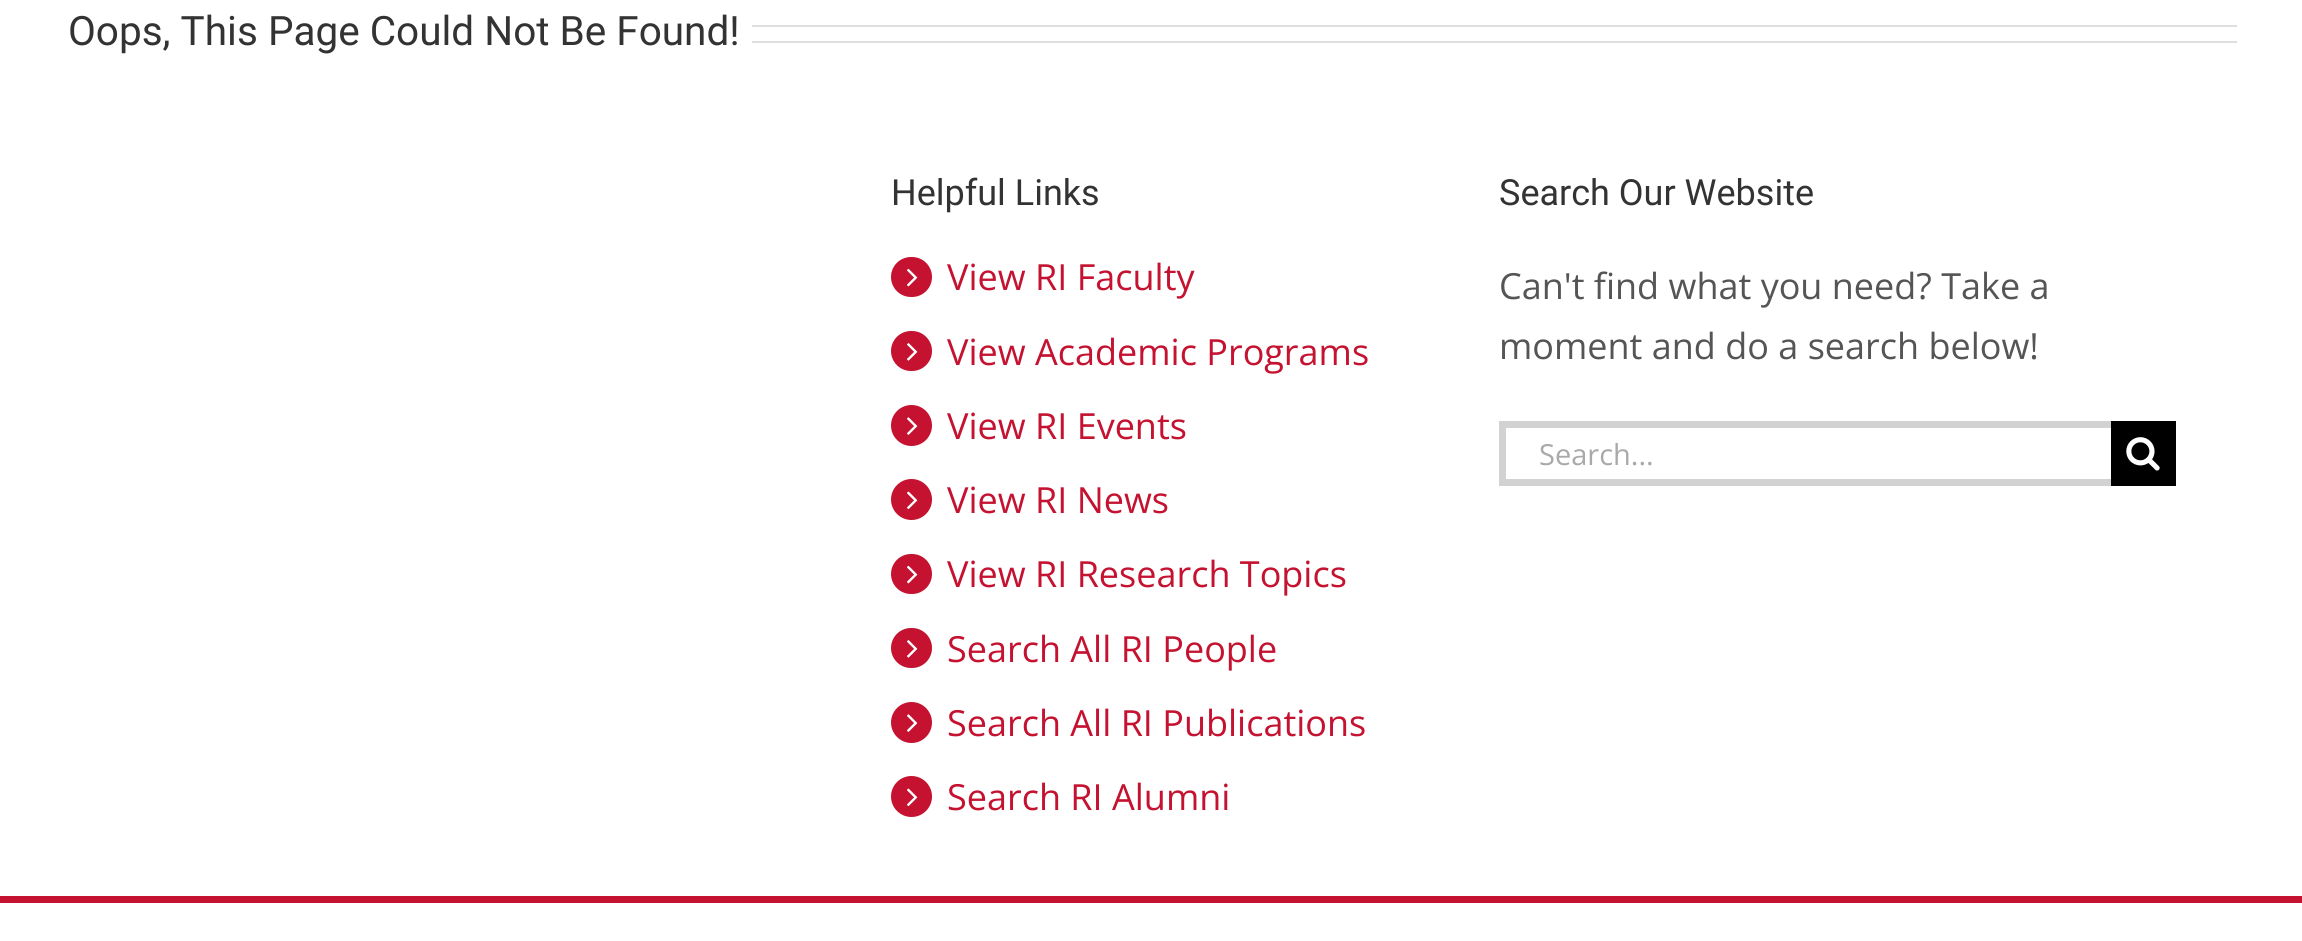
import math
import cairo

surface = cairo.ImageSurface(cairo.FORMAT_RGB24, 2302, 941)
cr = cairo.Context(surface)
options = cairo.FontOptions()
options.set_hint_metrics(cairo.HINT_METRICS_OFF)
options.set_hint_style(cairo.HINT_STYLE_NONE)
cr.set_font_options(options)
cr.set_miter_limit(4)


def rgb(code):
    cr.set_source_rgb(*(v / 255 for v in bytes.fromhex(code[-6:])))


def rrect(x, y, w, h, r):
    cr.new_sub_path()
    for i, (u, v) in enumerate([(x + w - r, y + h - r), (x + r, y + h - r), (x + r, y + r), (x + w - r, y + r)]):
        cr.arc(u, v, r, i * math.pi / 2, (i + 1) * math.pi / 2)
    cr.close_path()


def image(path, x, y, w, h):
    cr.save()
    cr.set_source_surface(cairo.ImageSurface.create_from_png(path), x, y)
    cr.rectangle(x, y, w, h)
    cr.fill()
    cr.restore()


rgb("#ffffff")
cr.paint()
rgb("#e0dede")
cr.rectangle(752, 25, 1485, 2)
cr.fill()
cr.rectangle(752, 41, 1485, 2)
cr.fill()
rgb("#c41230")
rrect(891, 257, 41, 40, 20)
cr.fill()
image("img/1.png", 907, 268, 11, 19)
rrect(891, 331, 41, 40, 20)
cr.fill()
image("img/2.png", 907, 343, 11, 18)
cr.arc(911.5, 425.5, 20.5, 0, 2 * math.pi)
cr.fill()
image("img/3.png", 907, 417, 11, 18)
cr.arc(911.5, 499.5, 20.5, 0, 2 * math.pi)
cr.fill()
image("img/4.png", 907, 491, 11, 19)
rrect(891, 554, 41, 40, 20)
cr.fill()
image("img/1.png", 907, 565, 11, 19)
rrect(891, 628, 41, 40, 20)
cr.fill()
image("img/2.png", 907, 640, 11, 18)
cr.arc(911.5, 722.5, 20.5, 0, 2 * math.pi)
cr.fill()
image("img/3.png", 907, 714, 11, 18)
cr.arc(911.5, 796.5, 20.5, 0, 2 * math.pi)
cr.fill()
image("img/4.png", 907, 788, 11, 19)
for x, y, w, h, color in [
    (1499, 421, 612, 7, "#d2d2d2"),
    (1499, 479, 612, 7, "#d2d2d2"),
    (1499, 421, 7, 65, "#d2d2d2"),
    (2111, 421, 65, 65, "#000000"),
]:
    rgb(color)
    cr.rectangle(x, y, w, h)
    cr.fill()
image("img/5.png", 2126, 437, 34, 34)
rgb("#c41230")
cr.rectangle(0, 896, 2302, 7)
cr.fill()
cr.select_font_face("Roboto")
cr.set_font_size(40.5)
rgb("#333333")
cr.move_to(68, 45)
cr.show_text("Oops, This Page Could Not Be Found!")
cr.set_font_size(36)
cr.move_to(891, 205)
cr.show_text("Helpful Links")
cr.select_font_face("Open Sans")
rgb("#c41230")
for x, y, s in [
    (947, 290, "View RI Faculty"),
    (947, 365, "View Academic Programs"),
    (947, 439, "View RI Events"),
    (947, 513, "View RI News"),
    (947, 587, "View RI Research Topics"),
    (947, 662, "Search All RI People"),
    (947, 736, "Search All RI Publications"),
    (947, 810, "Search RI Alumni"),
]:
    cr.move_to(x, y)
    cr.show_text(s)
cr.select_font_face("Roboto")
rgb("#333333")
cr.move_to(1499, 205)
cr.show_text("Search Our Website")
cr.select_font_face("Open Sans")
rgb("#555555")
cr.move_to(1499, 299)
cr.show_text("Can't find what you need? Take a")
cr.move_to(1499, 359)
cr.show_text("moment and do a search below!")
cr.set_font_size(29)
rgb("#aaa9a9")
cr.move_to(1539, 465)
cr.show_text("Search...")
surface.write_to_png("page.png")
